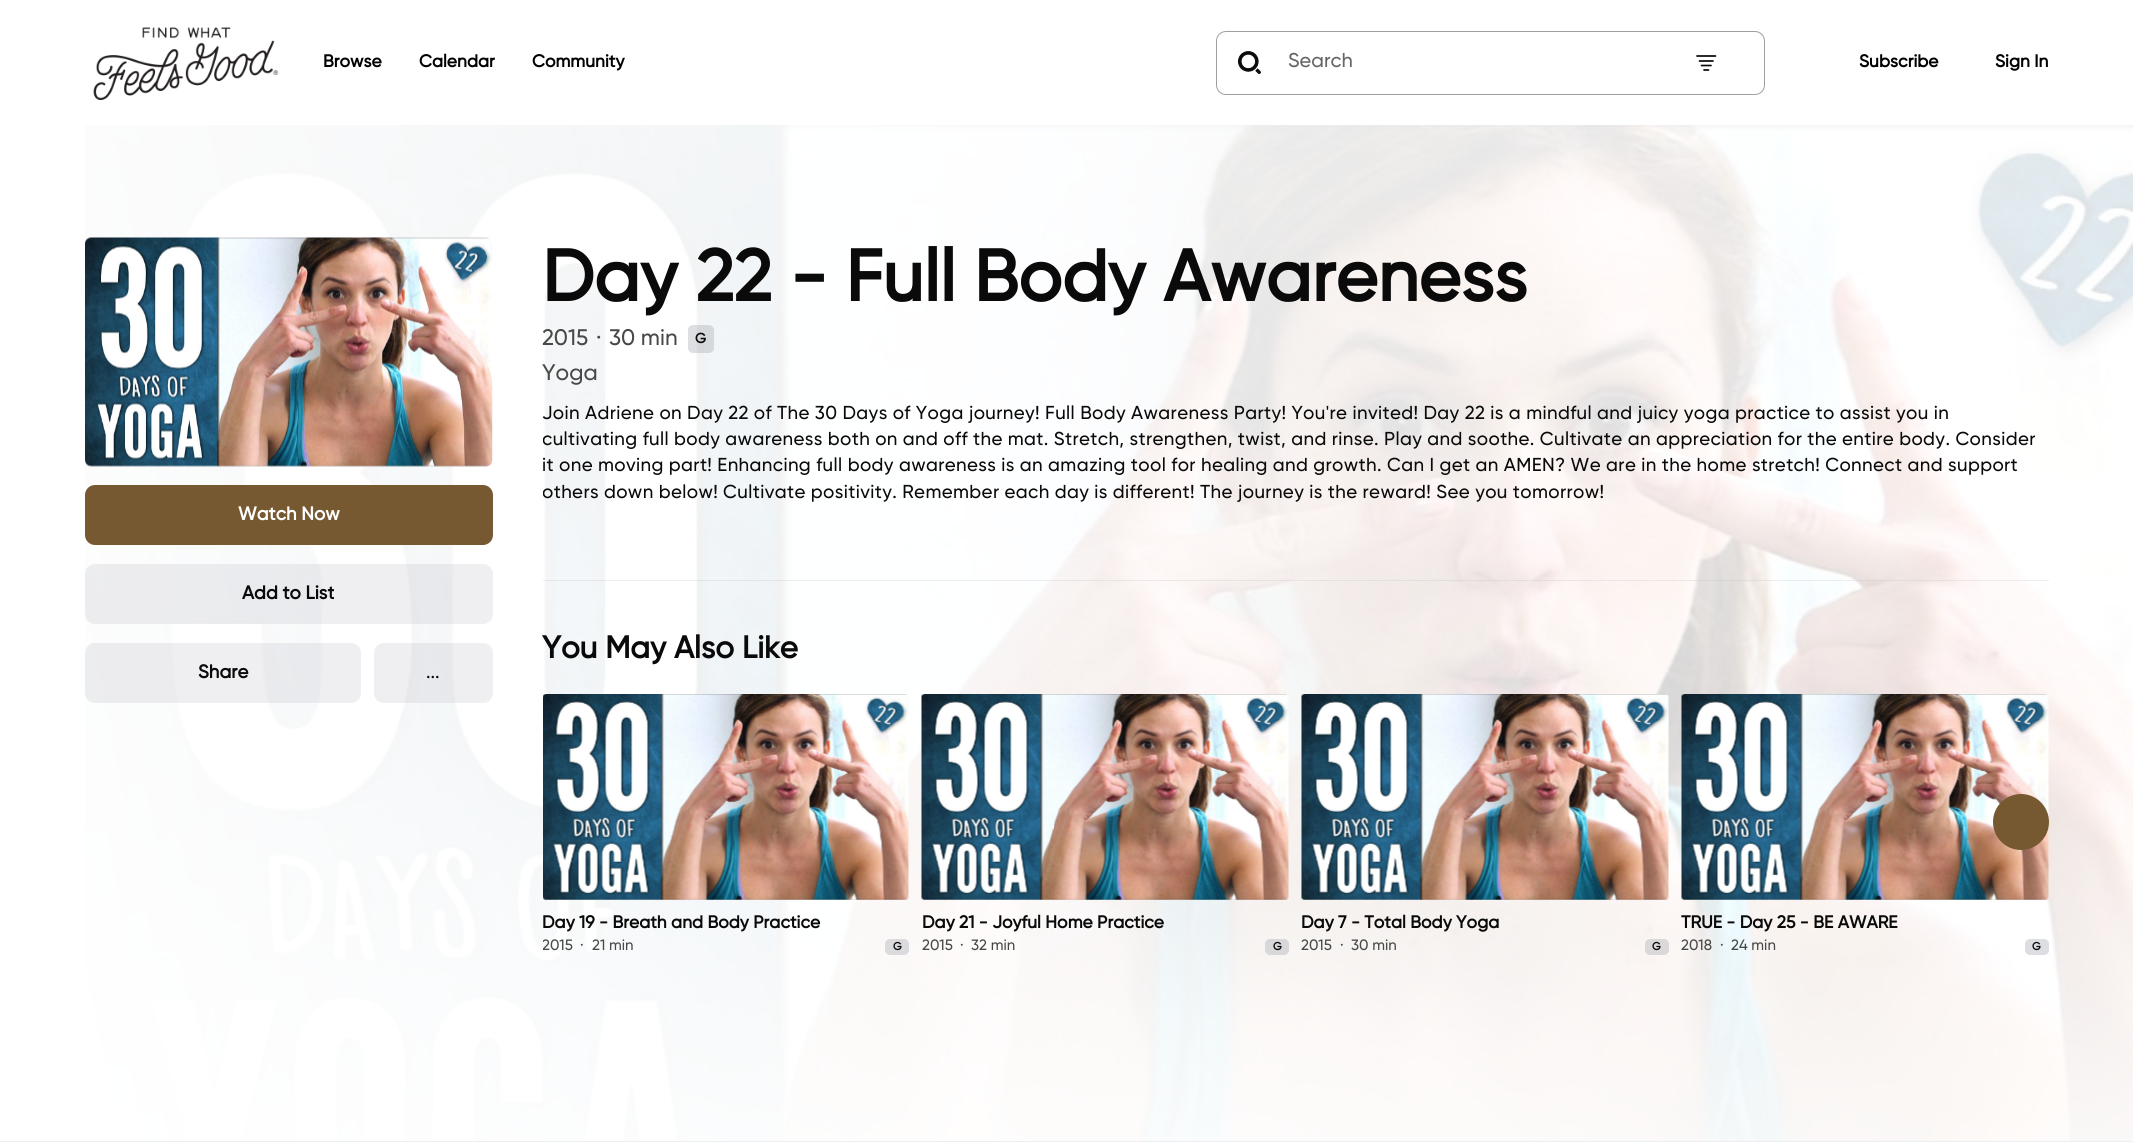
import math
import cairo

surface = cairo.ImageSurface(cairo.FORMAT_RGB24, 2133, 1147)
cr = cairo.Context(surface)
options = cairo.FontOptions()
options.set_hint_metrics(cairo.HINT_METRICS_OFF)
options.set_hint_style(cairo.HINT_STYLE_NONE)
cr.set_font_options(options)
cr.set_miter_limit(4)


def rgb(code):
    cr.set_source_rgb(*(v / 255 for v in bytes.fromhex(code[-6:])))


def tracked(x, y, s, letter, word):
    cr.move_to(x, y)
    for ch in s:
        cr.show_text(ch)
        cr.rel_move_to(letter + word * (ch == ' '), 0)


def rrect(x, y, w, h, r):
    cr.new_sub_path()
    for i, (u, v) in enumerate([(x + w - r, y + h - r), (x + r, y + h - r), (x + r, y + r), (x + w - r, y + r)]):
        cr.arc(u, v, r, i * math.pi / 2, (i + 1) * math.pi / 2)
    cr.close_path()


def image(path, x, y, w, h):
    cr.save()
    cr.set_source_surface(cairo.ImageSurface.create_from_png(path), x, y)
    cr.rectangle(x, y, w, h)
    cr.fill()
    cr.restore()


rgb("#ffffff")
cr.paint()
image("img/1.png", 93, 27, 186, 73)
rrect(1216.5, 31.5, 548, 63, 9.5)
rgb("#9e9fa4")
cr.set_line_width(1)
cr.stroke()
image("img/2.png", 1238, 51, 23, 23)
cr.new_path()
cr.move_to(1699.5, 61)
cr.line_to(1713, 61)
cr.move_to(1701.5, 65.5)
cr.line_to(1711, 65.5)
cr.move_to(1704, 70)
cr.line_to(1708.5, 70)
cr.move_to(1697, 56)
cr.line_to(1715.5, 56)
rgb("#0a0a0a")
cr.set_line_width(1.7)
cr.set_line_cap(cairo.LINE_CAP_ROUND)
cr.stroke()
image("img/3.png", 85, 125, 2048, 1016)
image("img/4.png", 85, 237, 408, 230)
rgb("#775931")
rrect(85, 485, 408, 60, 10)
cr.fill()
cr.set_source_rgba(0.588, 0.6, 0.639, 0.16)
rrect(85, 564, 408, 60, 10)
cr.fill()
rrect(85, 643, 276, 60, 10)
cr.fill()
rrect(374, 643, 119, 60, 10)
cr.fill()
cr.rectangle(543, 580, 1506, 1)
cr.fill()
cr.set_source_rgba(0.588, 0.6, 0.639, 0.32)
rrect(688, 325, 26, 28, 5)
cr.fill()
image("img/8.png", 1681, 694, 368, 206)
rgb("#775931")
cr.arc(2021, 822, 28, 0, 2 * math.pi)
cr.fill()
image("img/5.png", 543, 694, 366, 206)
rgb("#dbdadd")
rrect(885, 939, 24, 16, 5)
cr.fill()
image("img/6.png", 921, 694, 368, 206)
rgb("#d8d7d9")
rrect(1265, 939, 24, 16, 5)
cr.fill()
image("img/7.png", 1301, 694, 368, 206)
rgb("#dad8d9")
rrect(1645, 939, 24, 16, 5)
cr.fill()
rgb("#dddee2")
rrect(2025, 939, 24, 16, 5)
cr.fill()
rgb("#eeeff0")
cr.rectangle(0, 1141, 2133, 1)
cr.fill()
cr.select_font_face("Gilroy", cairo.FONT_SLANT_NORMAL, cairo.FONT_WEIGHT_BOLD)
cr.set_font_size(17.5)
rgb("#000000")
for x, y, s in [
    (323, 67, "Browse"),
    (419, 67, "Calendar"),
    (532, 67, "Community"),
]:
    cr.move_to(x, y)
    cr.show_text(s)
cr.select_font_face("Gilroy Medium")
cr.set_font_size(20)
rgb("#666666")
cr.move_to(1288, 67)
cr.show_text("Search")
cr.select_font_face("Gilroy", cairo.FONT_SLANT_NORMAL, cairo.FONT_WEIGHT_BOLD)
cr.set_font_size(17.5)
rgb("#000000")
cr.move_to(1859, 67)
cr.show_text("Subscribe")
cr.move_to(1995, 67)
cr.show_text("Sign In")
cr.set_font_size(18.75)
rgb("#ffffff")
cr.move_to(238, 520)
cr.show_text("Watch Now")
rgb("#0a0a0a")
cr.move_to(242, 599)
cr.show_text("Add to List")
cr.move_to(198, 678)
cr.show_text("Share")
cr.select_font_face("Gilroy Medium")
cr.move_to(426, 678)
cr.show_text("...")
cr.select_font_face("Gilroy", cairo.FONT_SLANT_NORMAL, cairo.FONT_WEIGHT_BOLD)
cr.set_font_size(72.5)
cr.move_to(542, 301)
cr.show_text("Day 22 - Full Body Awareness")
cr.select_font_face("Gilroy Medium")
cr.set_font_size(22.5)
rgb("#474848")
for x, y, s in [
    (542, 345, "2015"),
    (596, 345, "·"),
    (609, 345, "30 min"),
]:
    cr.move_to(x, y)
    cr.show_text(s)
cr.select_font_face("Gilroy", cairo.FONT_SLANT_NORMAL, cairo.FONT_WEIGHT_BOLD)
cr.set_font_size(14)
rgb("#0a0a0a")
cr.move_to(695, 343)
cr.show_text("G")
cr.select_font_face("Gilroy Medium")
cr.set_font_size(22.5)
rgb("#474848")
cr.move_to(542, 380)
cr.show_text("Yoga")
cr.set_font_size(18.75)
rgb("#0a0a0a")
tracked(542, 419, "Join Adriene on Day 22 of The 30 Days of Yoga journey! Full Body Awareness Party! You're invited! Day 22 is a mindful and juicy yoga practice to assist you in", 0.38, 0)
cr.save()
cr.rectangle(543, 238, 1506, 741)
cr.clip()
tracked(542, 445, "cultivating full body awareness both on and off the mat. Stretch, strengthen, twist, and rinse. Play and soothe. Cultivate an appreciation for the entire body. Consider", 0.38, 0)
cr.restore()
tracked(542, 471, "it one moving part! Enhancing full body awareness is an amazing tool for healing and growth. Can I get an AMEN? We are in the home stretch! Connect and support", 0.38, 0)
cr.save()
cr.rectangle(543, 238, 1506, 741)
cr.clip()
tracked(542, 498, "others down below!", 0.38, 0)
cr.restore()
tracked(723, 498, "Cultivate positivity. Remember each day is different! The journey is the reward! See you tomorrow!", 0.38, 0)
cr.select_font_face("Gilroy", cairo.FONT_SLANT_NORMAL, cairo.FONT_WEIGHT_BOLD)
cr.set_font_size(31.25)
cr.move_to(542, 658)
cr.show_text("You May Also Like")
cr.set_font_size(17.5)
cr.move_to(542, 928)
cr.show_text("Day 19 - Breath and Body Practice")
cr.save()
cr.rectangle(543, 694, 1506, 285)
cr.clip()
cr.select_font_face("Gilroy Medium")
cr.set_font_size(15)
rgb("#474848")
cr.move_to(542, 950)
cr.show_text("2015")
cr.restore()
cr.select_font_face("Gilroy Medium")
cr.set_font_size(15)
rgb("#474848")
cr.move_to(580, 950)
cr.show_text("·")
cr.move_to(592, 950)
cr.show_text("21 min")
cr.select_font_face("Gilroy", cairo.FONT_SLANT_NORMAL, cairo.FONT_WEIGHT_BOLD)
cr.set_font_size(11)
rgb("#0a0a0a")
cr.move_to(893, 950)
cr.show_text("G")
cr.set_font_size(17.5)
cr.move_to(922, 928)
cr.show_text("Day 21 - Joyful Home Practice")
cr.select_font_face("Gilroy Medium")
cr.set_font_size(15)
rgb("#474848")
for x, y, s in [
    (922, 950, "2015"),
    (960, 950, "·"),
    (971, 950, "32 min"),
]:
    cr.move_to(x, y)
    cr.show_text(s)
cr.select_font_face("Gilroy", cairo.FONT_SLANT_NORMAL, cairo.FONT_WEIGHT_BOLD)
cr.set_font_size(11)
rgb("#0a0a0a")
cr.move_to(1273, 950)
cr.show_text("G")
cr.set_font_size(17.5)
cr.move_to(1301, 928)
cr.show_text("Day 7 - Total Body Yoga")
cr.select_font_face("Gilroy Medium")
cr.set_font_size(15)
rgb("#474848")
for x, y, s in [
    (1301, 950, "2015"),
    (1340, 950, "·"),
    (1351, 950, "30 min"),
]:
    cr.move_to(x, y)
    cr.show_text(s)
cr.select_font_face("Gilroy", cairo.FONT_SLANT_NORMAL, cairo.FONT_WEIGHT_BOLD)
cr.set_font_size(11)
rgb("#0a0a0a")
cr.move_to(1652, 950)
cr.show_text("G")
cr.set_font_size(17.5)
cr.move_to(1681, 928)
cr.show_text("TRUE - Day 25 - BE AWARE")
cr.select_font_face("Gilroy Medium")
cr.set_font_size(15)
rgb("#474848")
for x, y, s in [
    (1681, 950, "2018"),
    (1720, 950, "·"),
    (1731, 950, "24 min"),
]:
    cr.move_to(x, y)
    cr.show_text(s)
cr.select_font_face("Gilroy", cairo.FONT_SLANT_NORMAL, cairo.FONT_WEIGHT_BOLD)
cr.set_font_size(11)
rgb("#0a0a0a")
cr.move_to(2032, 950)
cr.show_text("G")
surface.write_to_png("page.png")
